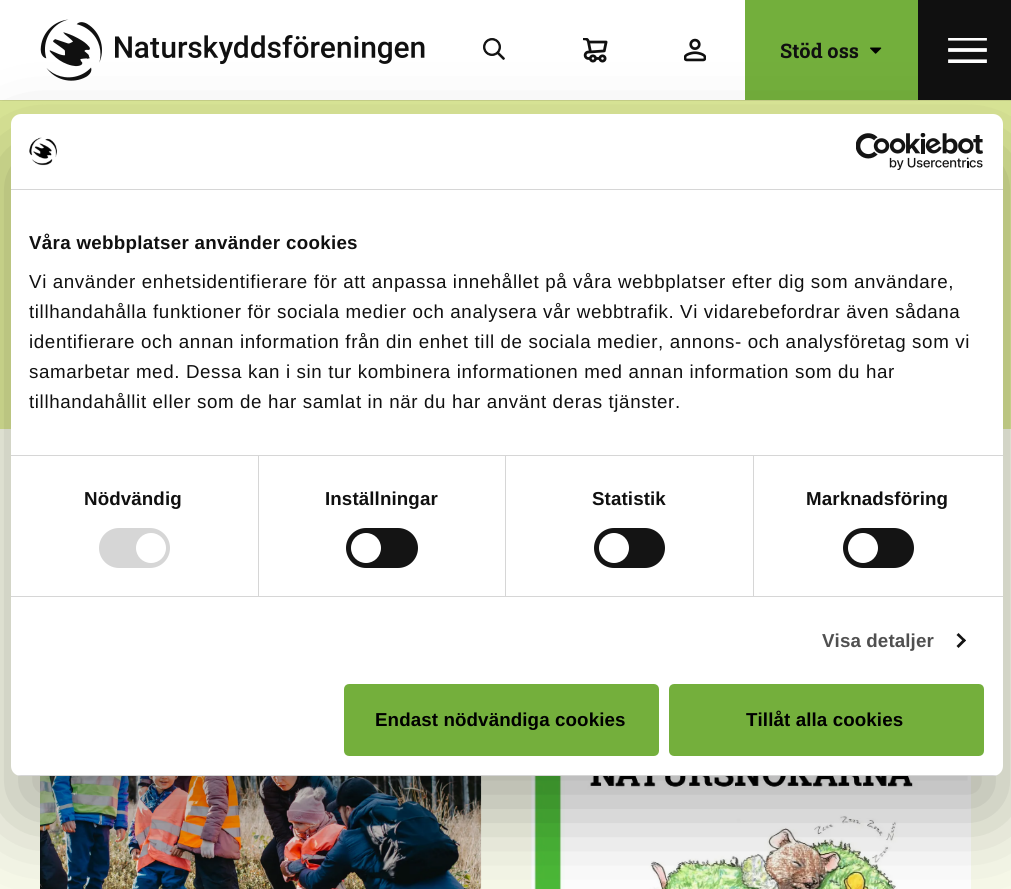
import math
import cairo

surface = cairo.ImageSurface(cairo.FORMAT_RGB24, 1011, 889)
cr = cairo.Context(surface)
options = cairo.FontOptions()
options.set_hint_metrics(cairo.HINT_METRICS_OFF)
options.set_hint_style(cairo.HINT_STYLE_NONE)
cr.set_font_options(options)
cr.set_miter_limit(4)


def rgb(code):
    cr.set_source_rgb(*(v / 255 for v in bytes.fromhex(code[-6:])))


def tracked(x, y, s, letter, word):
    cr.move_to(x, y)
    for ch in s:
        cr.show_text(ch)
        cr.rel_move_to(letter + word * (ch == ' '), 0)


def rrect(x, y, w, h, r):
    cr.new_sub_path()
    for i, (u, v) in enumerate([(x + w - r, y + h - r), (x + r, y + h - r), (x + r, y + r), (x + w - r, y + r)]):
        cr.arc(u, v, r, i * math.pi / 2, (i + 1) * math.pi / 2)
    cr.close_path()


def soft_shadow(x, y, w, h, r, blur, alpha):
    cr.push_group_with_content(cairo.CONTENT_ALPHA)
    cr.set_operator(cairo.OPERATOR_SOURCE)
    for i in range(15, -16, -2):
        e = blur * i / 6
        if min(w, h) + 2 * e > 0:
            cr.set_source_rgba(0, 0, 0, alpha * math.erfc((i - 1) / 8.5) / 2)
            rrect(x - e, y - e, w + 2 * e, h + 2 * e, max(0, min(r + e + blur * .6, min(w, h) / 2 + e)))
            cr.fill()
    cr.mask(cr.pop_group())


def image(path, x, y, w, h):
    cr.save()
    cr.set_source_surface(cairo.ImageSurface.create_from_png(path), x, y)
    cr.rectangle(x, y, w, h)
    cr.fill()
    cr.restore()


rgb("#f8faea")
cr.paint()
rgb("#ffffff")
cr.rectangle(0, 0, 745, 100)
cr.fill()
image("img/1.png", 40, 19, 62, 62)
image("img/2.png", 115, 35, 310, 30)
image("img/3.png", 483, 38, 22, 22)
image("img/4.png", 583, 38, 25, 25)
image("img/5.png", 684, 38, 22, 24)
rgb("#73af3c")
cr.rectangle(745, 0, 173, 100)
cr.fill()
image("img/6.png", 870, 47, 12, 7)
rgb("#101010")
cr.rectangle(918, 0, 93, 100)
cr.fill()
image("img/7.png", 948, 38, 39, 25)
rgb("#c8d28a")
cr.rectangle(0, 100, 1011, 1)
cr.fill()
rgb("#dce898")
cr.rectangle(0, 101, 1011, 328)
cr.fill()
image("img/8.png", 40, 776, 442, 113)
rgb("#f3f3f3")
cr.rectangle(531, 776, 1, 113)
cr.fill()
image("img/9.png", 531, 776, 440, 113)
rgb("#000000")
soft_shadow(11, 154, 992, 662, 10, 42.5, 0.3)
rgb("#ffffff")
rrect(11, 114, 992, 662, 10)
cr.fill()
rgb("#d6d6d6")
cr.rectangle(11, 189, 992, 1)
cr.fill()
image("img/10.png", 29, 137, 28, 29)
image("img/11.png", 856, 133, 127, 37)
for x, y, w, h, color in [
    (11, 455, 992, 1, "#d6d6d6"),
    (11, 596, 992, 1, "#d6d6d6"),
    (258, 456, 1, 140, "#d6d6d6"),
]:
    rgb(color)
    cr.rectangle(x, y, w, h)
    cr.fill()
rrect(99, 528, 71, 40, 20)
cr.fill()
rgb("#ffffff")
cr.arc(151, 548, 15, 0, 2 * math.pi)
cr.fill()
rgb("#d6d6d6")
cr.rectangle(505, 456, 1, 140)
cr.fill()
rgb("#141414")
rrect(346, 528, 72, 40, 20)
cr.fill()
rgb("#ffffff")
cr.arc(366, 548, 15, 0, 2 * math.pi)
cr.fill()
rgb("#d6d6d6")
cr.rectangle(753, 456, 1, 140)
cr.fill()
rgb("#141414")
rrect(594, 528, 71, 40, 20)
cr.fill()
rgb("#ffffff")
cr.arc(614, 548, 15, 0, 2 * math.pi)
cr.fill()
rgb("#141414")
rrect(843, 528, 71, 40, 20)
cr.fill()
rgb("#ffffff")
cr.arc(863, 548, 15, 0, 2 * math.pi)
cr.fill()
rgb("#141414")
cr.new_path()
cr.move_to(958.5, 633)
cr.line_to(966, 640.5)
cr.line_to(964, 642)
cr.line_to(956.5, 635)
cr.close_path()
cr.fill()
cr.new_path()
cr.move_to(964, 638.5)
cr.line_to(966, 640.5)
cr.line_to(958.5, 648)
cr.line_to(956.5, 646)
cr.close_path()
cr.fill()
cr.save()
rrect(11, 114, 992, 662, 10)
cr.clip()
rgb("#d6d6d6")
cr.rectangle(11, 775, 992, 1)
cr.fill()
cr.restore()
rgb("#74af3c")
rrect(345.5, 685.5, 312, 69, 3.5)
cr.fill_preserve()
cr.set_line_width(3)
cr.stroke()
rrect(670.5, 685.5, 312, 69, 3.5)
cr.fill_preserve()
cr.stroke()
cr.select_font_face("Roboto Slab", cairo.FONT_SLANT_NORMAL, cairo.FONT_WEIGHT_BOLD)
cr.set_font_size(20)
rgb("#101010")
cr.move_to(780, 58)
cr.show_text("Stöd oss")
cr.select_font_face("Liberation Sans", cairo.FONT_SLANT_NORMAL, cairo.FONT_WEIGHT_BOLD)
cr.set_font_size(18.75)
tracked(29, 249, "Våra webbplatser använder cookies", 0.3, 0)
cr.select_font_face("Liberation Sans")
for x, y, s in [
    (29, 288, "Vi använder enhetsidentifierare för att anpassa innehållet på våra webbplatser efter dig som användare,"),
    (29, 318, "tillhandahålla funktioner för sociala medier och analysera vår webbtrafik. Vi vidarebefordrar även sådana"),
    (29, 348, "identifierare och annan information från din enhet till de sociala medier, annons- och analysföretag som vi"),
    (29, 378, "samarbetar med. Dessa kan i sin tur kombinera informationen med annan information som du har"),
    (29, 408, "tillhandahållit eller som de har samlat in när du har använt deras tjänster."),
]:
    tracked(x, y, s, 0.62, 0)
cr.select_font_face("Liberation Sans", cairo.FONT_SLANT_NORMAL, cairo.FONT_WEIGHT_BOLD)
for x, y, s in [
    (84, 505, "Nödvändig"),
    (325, 505, "Inställningar"),
    (592, 505, "Statistik"),
    (806, 505, "Marknadsföring"),
]:
    tracked(x, y, s, 0.1, 0)
rgb("#505050")
tracked(822, 647, "Visa detaljer", 0.1, 0)
rgb("#000000")
tracked(375, 726, "Endast nödvändiga cookies", 0.1, 0)
tracked(746, 726, "Tillåt alla cookies", 0.1, 0)
surface.write_to_png("page.png")
